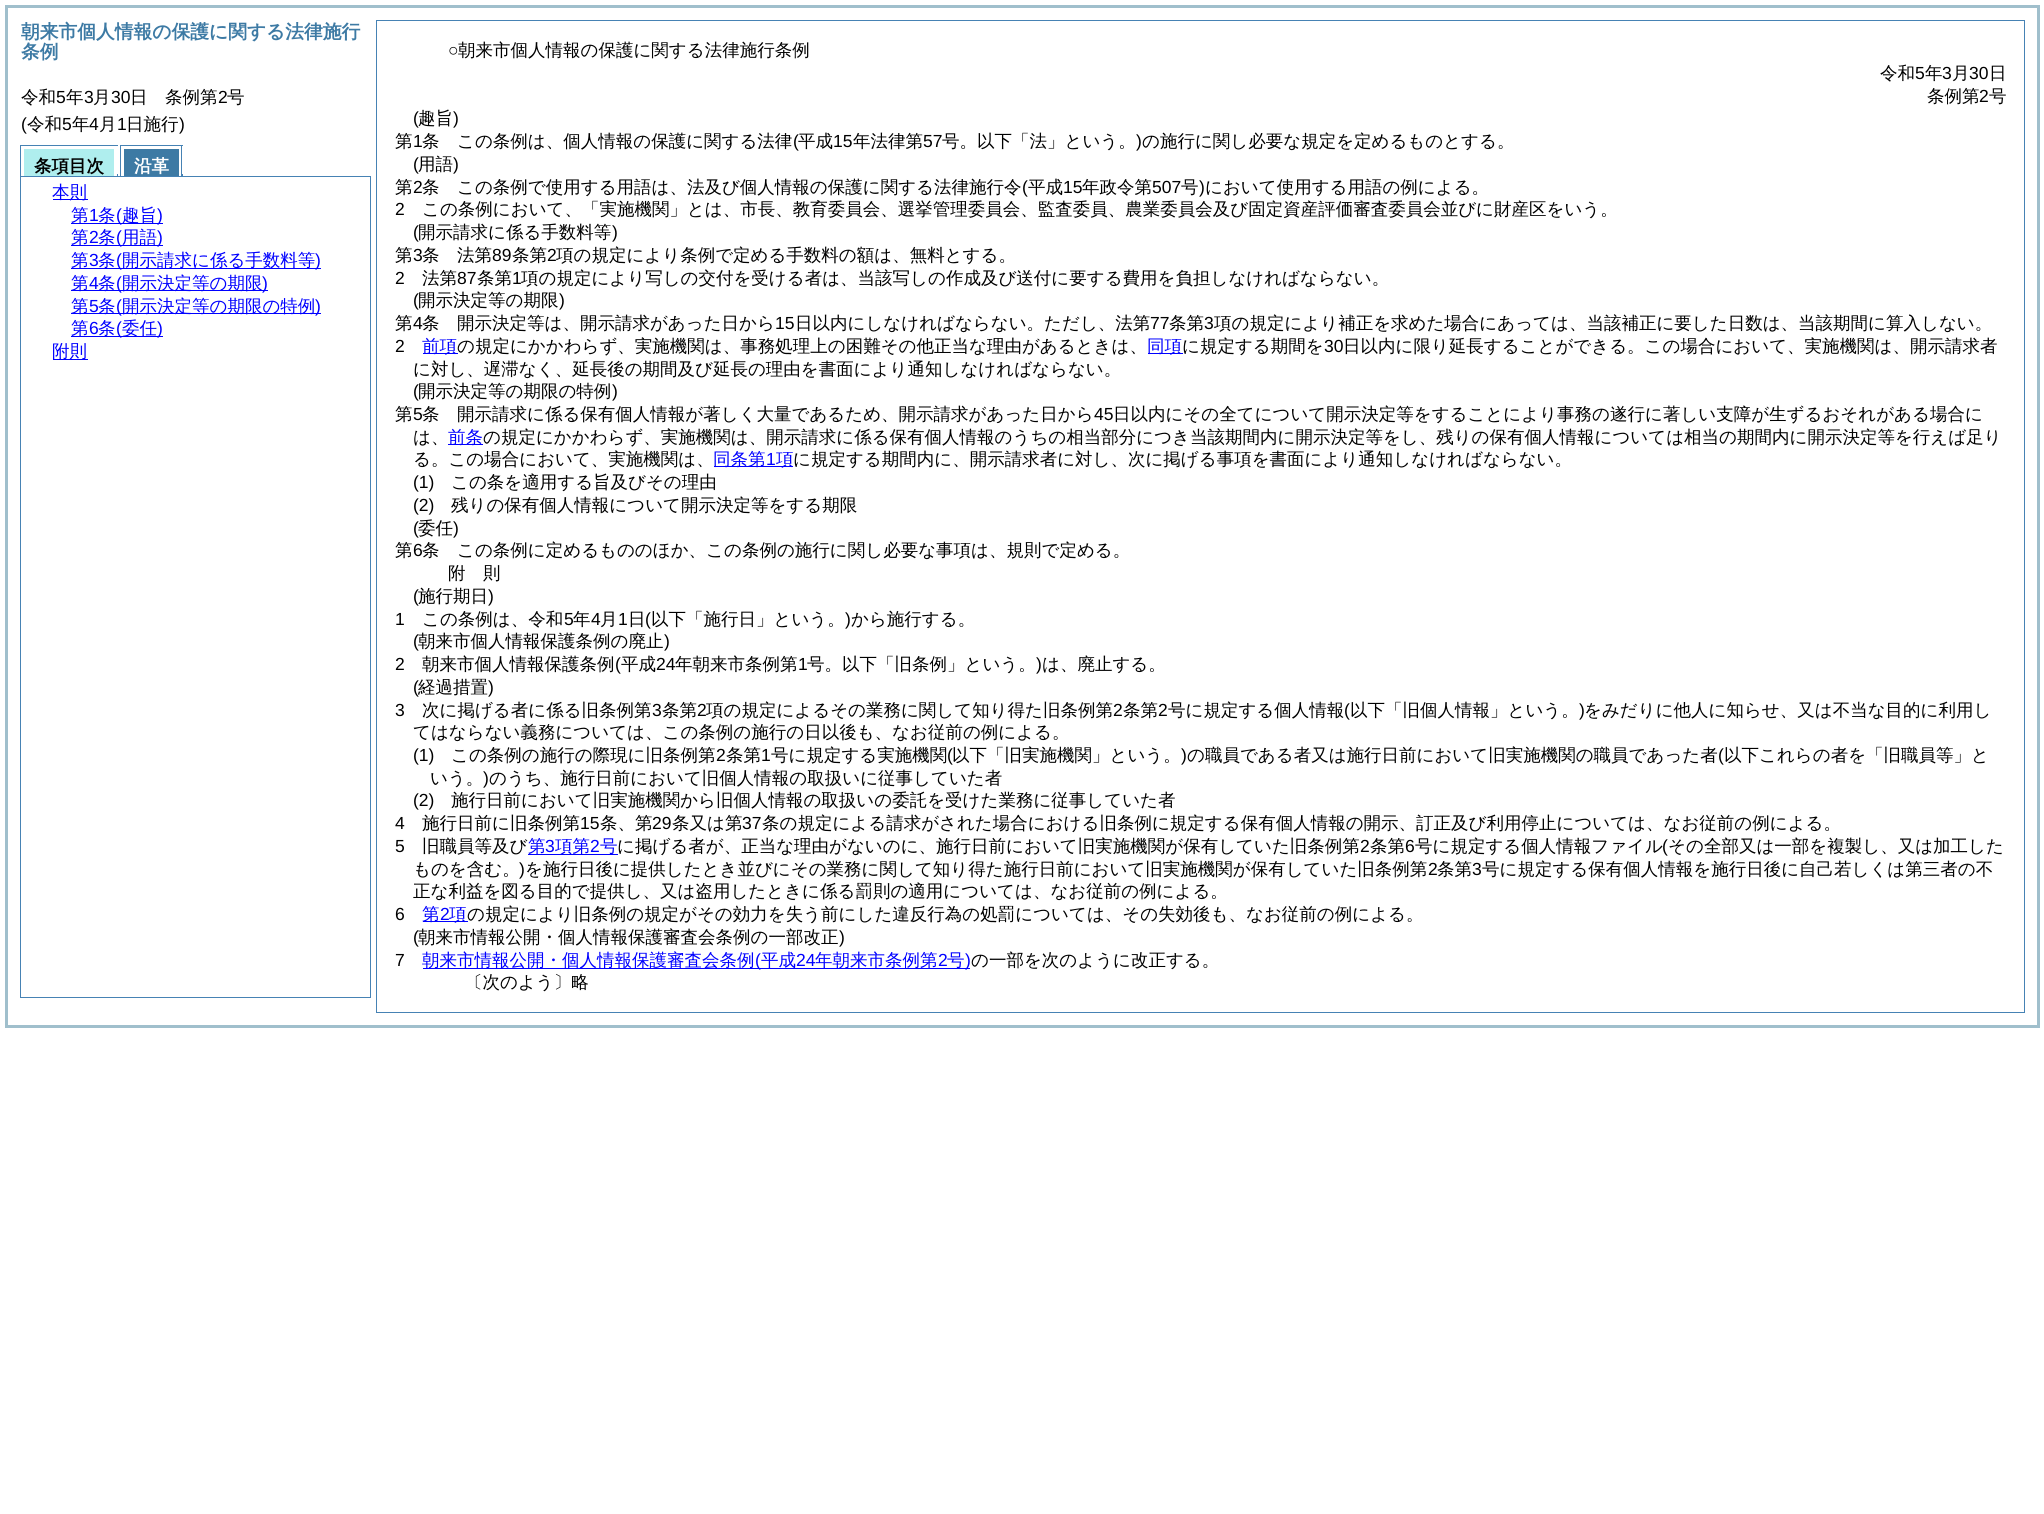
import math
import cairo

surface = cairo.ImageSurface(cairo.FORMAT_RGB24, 2044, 1514)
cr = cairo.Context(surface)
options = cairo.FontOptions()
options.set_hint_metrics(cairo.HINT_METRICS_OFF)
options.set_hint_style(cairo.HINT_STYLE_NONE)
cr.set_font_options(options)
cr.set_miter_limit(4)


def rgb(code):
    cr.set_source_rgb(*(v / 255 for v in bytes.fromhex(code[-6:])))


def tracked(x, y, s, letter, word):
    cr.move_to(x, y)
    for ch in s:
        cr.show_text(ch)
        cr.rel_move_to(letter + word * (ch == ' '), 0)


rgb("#ffffff")
cr.paint()
cr.rectangle(6.5, 6.5, 2032, 1020)
rgb("#a0bfcc")
cr.set_line_width(3)
cr.stroke()
for x, y, w, h, color in [
    (20, 145, 98, 1, "#4682b4"),
    (117, 174, 1, 2, "#4682b4"),
    (20, 145, 1, 33, "#4682b4"),
    (24, 149, 90, 27, "#afeeee"),
    (120, 145, 63, 1, "#4682b4"),
    (181, 145, 1, 33, "#4682b4"),
    (181, 174, 2, 2, "#4682b4"),
    (120, 145, 1, 33, "#4682b4"),
    (124, 149, 55, 27, "#3d7aa4"),
    (120, 177, 62, 1, "#ffffff"),
]:
    rgb(color)
    cr.rectangle(x, y, w, h)
    cr.fill()
cr.rectangle(20.5, 176.5, 350, 821)
rgb("#4682b4")
cr.set_line_width(1)
cr.stroke()
for x, y, w, h, color in [
    (53, 199, 35, 1, "#0000ff"),
    (71, 223, 92, 1, "#0000ff"),
    (71, 245, 92, 1, "#0000ff"),
    (71, 268, 250, 1, "#0000ff"),
    (71, 290, 197, 1, "#0000ff"),
    (71, 313, 250, 1, "#0000ff"),
    (71, 336, 92, 1, "#0000ff"),
    (53, 359, 35, 1, "#0000ff"),
]:
    rgb(color)
    cr.rectangle(x, y, w, h)
    cr.fill()
cr.rectangle(376.5, 20.5, 1648, 992)
rgb("#4682b4")
cr.stroke()
for x, y, w, h, color in [
    (423, 353, 35, 1, "#0000ff"),
    (1148, 353, 35, 1, "#0000ff"),
    (448, 444, 35, 1, "#0000ff"),
    (714, 466, 79, 1, "#0000ff"),
    (528, 854, 90, 1, "#0000ff"),
    (423, 921, 45, 1, "#0000ff"),
    (423, 968, 547, 1, "#0000ff"),
]:
    rgb(color)
    cr.rectangle(x, y, w, h)
    cr.fill()
cr.select_font_face("WenQuanYi Zen Hei", cairo.FONT_SLANT_NORMAL, cairo.FONT_WEIGHT_BOLD)
cr.set_font_size(18.75)
rgb("#3d7aa4")
cr.move_to(21, 38)
cr.show_text("朝来市個人情報の保護に関する法律施行")
cr.move_to(21, 58)
cr.show_text("条例")
cr.select_font_face("WenQuanYi Zen Hei Medium")
cr.set_font_size(17.5)
rgb("#000000")
cr.move_to(21, 103)
cr.show_text("令和")
cr.select_font_face("Liberation Sans")
cr.move_to(56, 103)
cr.show_text("5")
cr.select_font_face("WenQuanYi Zen Hei Medium")
cr.move_to(66, 103)
cr.show_text("年")
cr.select_font_face("Liberation Sans")
cr.move_to(84, 103)
cr.show_text("3")
cr.select_font_face("WenQuanYi Zen Hei Medium")
cr.move_to(93, 103)
cr.show_text("月")
cr.select_font_face("Liberation Sans")
cr.move_to(111, 103)
cr.show_text("30")
cr.select_font_face("WenQuanYi Zen Hei Medium")
cr.move_to(130, 103)
cr.show_text("日　条例第")
cr.select_font_face("Liberation Sans")
cr.move_to(218, 103)
cr.show_text("2")
cr.select_font_face("WenQuanYi Zen Hei Medium")
cr.move_to(227, 103)
cr.show_text("号")
cr.select_font_face("Liberation Sans")
cr.move_to(21, 130)
cr.show_text("(")
cr.select_font_face("WenQuanYi Zen Hei Medium")
cr.move_to(27, 130)
cr.show_text("令和")
cr.select_font_face("Liberation Sans")
cr.move_to(62, 130)
cr.show_text("5")
cr.select_font_face("WenQuanYi Zen Hei Medium")
cr.move_to(72, 130)
cr.show_text("年")
cr.select_font_face("Liberation Sans")
cr.move_to(89, 130)
cr.show_text("4")
cr.select_font_face("WenQuanYi Zen Hei Medium")
cr.move_to(99, 130)
cr.show_text("月")
cr.select_font_face("Liberation Sans")
cr.move_to(117, 130)
cr.show_text("1")
cr.select_font_face("WenQuanYi Zen Hei Medium")
cr.move_to(126, 130)
cr.show_text("日施行")
cr.select_font_face("Liberation Sans")
cr.move_to(179, 130)
cr.show_text(")")
cr.select_font_face("WenQuanYi Zen Hei", cairo.FONT_SLANT_NORMAL, cairo.FONT_WEIGHT_BOLD)
cr.move_to(34, 172)
cr.show_text("条項目次")
rgb("#ffffff")
cr.move_to(134, 172)
cr.show_text("沿革")
cr.select_font_face("WenQuanYi Zen Hei Medium")
rgb("#0000ff")
cr.move_to(52, 198)
cr.show_text("本則")
cr.move_to(71, 221)
cr.show_text("第")
cr.select_font_face("Liberation Sans")
cr.move_to(89, 221)
cr.show_text("1")
cr.select_font_face("WenQuanYi Zen Hei Medium")
cr.move_to(98, 221)
cr.show_text("条")
cr.select_font_face("Liberation Sans")
cr.move_to(116, 221)
cr.show_text("(")
cr.select_font_face("WenQuanYi Zen Hei Medium")
cr.move_to(122, 221)
cr.show_text("趣旨")
cr.select_font_face("Liberation Sans")
cr.move_to(157, 221)
cr.show_text(")")
cr.select_font_face("WenQuanYi Zen Hei Medium")
cr.move_to(71, 243)
cr.show_text("第")
cr.select_font_face("Liberation Sans")
cr.move_to(89, 243)
cr.show_text("2")
cr.select_font_face("WenQuanYi Zen Hei Medium")
cr.move_to(98, 243)
cr.show_text("条")
cr.select_font_face("Liberation Sans")
cr.move_to(116, 243)
cr.show_text("(")
cr.select_font_face("WenQuanYi Zen Hei Medium")
cr.move_to(122, 243)
cr.show_text("用語")
cr.select_font_face("Liberation Sans")
cr.move_to(157, 243)
cr.show_text(")")
cr.select_font_face("WenQuanYi Zen Hei Medium")
cr.move_to(71, 266)
cr.show_text("第")
cr.select_font_face("Liberation Sans")
cr.move_to(89, 266)
cr.show_text("3")
cr.select_font_face("WenQuanYi Zen Hei Medium")
cr.move_to(98, 266)
cr.show_text("条")
cr.select_font_face("Liberation Sans")
cr.move_to(116, 266)
cr.show_text("(")
cr.select_font_face("WenQuanYi Zen Hei Medium")
cr.move_to(122, 266)
cr.show_text("開示請求に係る手数料等")
cr.select_font_face("Liberation Sans")
cr.move_to(315, 266)
cr.show_text(")")
cr.select_font_face("WenQuanYi Zen Hei Medium")
cr.move_to(71, 289)
cr.show_text("第")
cr.select_font_face("Liberation Sans")
cr.move_to(89, 289)
cr.show_text("4")
cr.select_font_face("WenQuanYi Zen Hei Medium")
cr.move_to(98, 289)
cr.show_text("条")
cr.select_font_face("Liberation Sans")
cr.move_to(116, 289)
cr.show_text("(")
cr.select_font_face("WenQuanYi Zen Hei Medium")
cr.move_to(122, 289)
cr.show_text("開示決定等の期限")
cr.select_font_face("Liberation Sans")
cr.move_to(262, 289)
cr.show_text(")")
cr.select_font_face("WenQuanYi Zen Hei Medium")
cr.move_to(71, 312)
cr.show_text("第")
cr.select_font_face("Liberation Sans")
cr.move_to(89, 312)
cr.show_text("5")
cr.select_font_face("WenQuanYi Zen Hei Medium")
cr.move_to(98, 312)
cr.show_text("条")
cr.select_font_face("Liberation Sans")
cr.move_to(116, 312)
cr.show_text("(")
cr.select_font_face("WenQuanYi Zen Hei Medium")
cr.move_to(122, 312)
cr.show_text("開示決定等の期限の特例")
cr.select_font_face("Liberation Sans")
cr.move_to(315, 312)
cr.show_text(")")
cr.select_font_face("WenQuanYi Zen Hei Medium")
cr.move_to(71, 334)
cr.show_text("第")
cr.select_font_face("Liberation Sans")
cr.move_to(89, 334)
cr.show_text("6")
cr.select_font_face("WenQuanYi Zen Hei Medium")
cr.move_to(98, 334)
cr.show_text("条")
cr.select_font_face("Liberation Sans")
cr.move_to(116, 334)
cr.show_text("(")
cr.select_font_face("WenQuanYi Zen Hei Medium")
cr.move_to(122, 334)
cr.show_text("委任")
cr.select_font_face("Liberation Sans")
cr.move_to(157, 334)
cr.show_text(")")
cr.select_font_face("WenQuanYi Zen Hei Medium")
cr.move_to(52, 357)
cr.show_text("附則")
cr.select_font_face("Liberation Sans")
rgb("#000000")
cr.move_to(448, 56)
cr.show_text("○")
cr.select_font_face("WenQuanYi Zen Hei Medium")
cr.move_to(458, 56)
cr.show_text("朝来市個人情報の保護に関する法律施行条例")
cr.move_to(1880, 79)
cr.show_text("令和")
cr.select_font_face("Liberation Sans")
cr.move_to(1915, 79)
cr.show_text("5")
cr.select_font_face("WenQuanYi Zen Hei Medium")
cr.move_to(1925, 79)
cr.show_text("年")
cr.select_font_face("Liberation Sans")
cr.move_to(1942, 79)
cr.show_text("3")
cr.select_font_face("WenQuanYi Zen Hei Medium")
cr.move_to(1952, 79)
cr.show_text("月")
cr.select_font_face("Liberation Sans")
cr.move_to(1969, 79)
cr.show_text("30")
cr.select_font_face("WenQuanYi Zen Hei Medium")
cr.move_to(1989, 79)
cr.show_text("日")
cr.move_to(1927, 102)
cr.show_text("条例第")
cr.select_font_face("Liberation Sans")
cr.move_to(1979, 102)
cr.show_text("2")
cr.select_font_face("WenQuanYi Zen Hei Medium")
cr.move_to(1989, 102)
cr.show_text("号")
cr.select_font_face("Liberation Sans")
cr.move_to(413, 124)
cr.show_text("(")
cr.select_font_face("WenQuanYi Zen Hei Medium")
cr.move_to(418, 124)
cr.show_text("趣旨")
cr.select_font_face("Liberation Sans")
cr.move_to(453, 124)
cr.show_text(")")
cr.select_font_face("WenQuanYi Zen Hei Medium")
cr.move_to(395, 147)
cr.show_text("第")
cr.select_font_face("Liberation Sans")
cr.move_to(413, 147)
cr.show_text("1")
cr.select_font_face("WenQuanYi Zen Hei Medium")
cr.move_to(422, 147)
cr.show_text("条")
cr.move_to(457, 147)
cr.show_text("この条例は、個人情報の保護に関する法律")
cr.select_font_face("Liberation Sans")
cr.move_to(793, 147)
cr.show_text("(")
cr.select_font_face("WenQuanYi Zen Hei Medium")
cr.move_to(798, 147)
cr.show_text("平成")
cr.select_font_face("Liberation Sans")
cr.move_to(833, 147)
cr.show_text("15")
cr.select_font_face("WenQuanYi Zen Hei Medium")
cr.move_to(853, 147)
cr.show_text("年法律第")
cr.select_font_face("Liberation Sans")
cr.move_to(923, 147)
cr.show_text("57")
cr.select_font_face("WenQuanYi Zen Hei Medium")
cr.move_to(942, 147)
cr.show_text("号。以下「法」という。")
cr.select_font_face("Liberation Sans")
cr.move_to(1136, 147)
cr.show_text(")")
cr.select_font_face("WenQuanYi Zen Hei Medium")
cr.move_to(1142, 147)
cr.show_text("の施行に関し必要な規定を定めるものとする。")
cr.select_font_face("Liberation Sans")
cr.move_to(413, 170)
cr.show_text("(")
cr.select_font_face("WenQuanYi Zen Hei Medium")
cr.move_to(418, 170)
cr.show_text("用語")
cr.select_font_face("Liberation Sans")
cr.move_to(453, 170)
cr.show_text(")")
cr.select_font_face("WenQuanYi Zen Hei Medium")
cr.move_to(395, 193)
cr.show_text("第")
cr.select_font_face("Liberation Sans")
cr.move_to(413, 193)
cr.show_text("2")
cr.select_font_face("WenQuanYi Zen Hei Medium")
cr.move_to(422, 193)
cr.show_text("条")
cr.move_to(457, 193)
cr.show_text("この条例で使用する用語は、法及び個人情報の保護に関する法律施行令")
cr.select_font_face("Liberation Sans")
cr.move_to(1022, 193)
cr.show_text("(")
cr.select_font_face("WenQuanYi Zen Hei Medium")
cr.move_to(1028, 193)
cr.show_text("平成")
cr.select_font_face("Liberation Sans")
cr.move_to(1063, 193)
cr.show_text("15")
cr.select_font_face("WenQuanYi Zen Hei Medium")
cr.move_to(1082, 193)
cr.show_text("年政令第")
cr.select_font_face("Liberation Sans")
cr.move_to(1152, 193)
cr.show_text("507")
cr.select_font_face("WenQuanYi Zen Hei Medium")
cr.move_to(1181, 193)
cr.show_text("号")
cr.select_font_face("Liberation Sans")
cr.move_to(1199, 193)
cr.show_text(")")
cr.select_font_face("WenQuanYi Zen Hei Medium")
cr.move_to(1205, 193)
cr.show_text("において使用する用語の例による。")
cr.select_font_face("Liberation Sans")
cr.move_to(395, 215)
cr.show_text("2")
cr.select_font_face("WenQuanYi Zen Hei Medium")
cr.move_to(422, 215)
cr.show_text("この条例において、「実施機関」とは、市長、教育委員会、選挙管理委員会、監査委員、農業委員会及び固定資産評価審査委員会並びに財産区をいう。")
cr.select_font_face("Liberation Sans")
cr.move_to(413, 238)
cr.show_text("(")
cr.select_font_face("WenQuanYi Zen Hei Medium")
cr.move_to(418, 238)
cr.show_text("開示請求に係る手数料等")
cr.select_font_face("Liberation Sans")
cr.move_to(612, 238)
cr.show_text(")")
cr.select_font_face("WenQuanYi Zen Hei Medium")
cr.move_to(395, 261)
cr.show_text("第")
cr.select_font_face("Liberation Sans")
cr.move_to(413, 261)
cr.show_text("3")
cr.select_font_face("WenQuanYi Zen Hei Medium")
cr.move_to(422, 261)
cr.show_text("条")
cr.move_to(457, 261)
cr.show_text("法第")
cr.select_font_face("Liberation Sans")
cr.move_to(492, 261)
cr.show_text("89")
cr.select_font_face("WenQuanYi Zen Hei Medium")
cr.move_to(512, 261)
cr.show_text("条第")
cr.select_font_face("Liberation Sans")
cr.move_to(547, 261)
cr.show_text("2")
cr.select_font_face("WenQuanYi Zen Hei Medium")
cr.move_to(556, 261)
cr.show_text("項の規定により条例で定める手数料の額は、無料とする。")
cr.select_font_face("Liberation Sans")
cr.move_to(395, 284)
cr.show_text("2")
cr.select_font_face("WenQuanYi Zen Hei Medium")
cr.move_to(422, 284)
cr.show_text("法第")
cr.select_font_face("Liberation Sans")
cr.move_to(457, 284)
cr.show_text("87")
cr.select_font_face("WenQuanYi Zen Hei Medium")
cr.move_to(477, 284)
cr.show_text("条第")
cr.select_font_face("Liberation Sans")
cr.move_to(512, 284)
cr.show_text("1")
cr.select_font_face("WenQuanYi Zen Hei Medium")
cr.move_to(521, 284)
cr.show_text("項の規定により写しの交付を受ける者は、当該写しの作成及び送付に要する費用を負担しなければならない。")
cr.select_font_face("Liberation Sans")
cr.move_to(413, 306)
cr.show_text("(")
cr.select_font_face("WenQuanYi Zen Hei Medium")
cr.move_to(418, 306)
cr.show_text("開示決定等の期限")
cr.select_font_face("Liberation Sans")
cr.move_to(559, 306)
cr.show_text(")")
cr.select_font_face("WenQuanYi Zen Hei Medium")
cr.move_to(395, 329)
cr.show_text("第")
cr.select_font_face("Liberation Sans")
cr.move_to(413, 329)
cr.show_text("4")
cr.select_font_face("WenQuanYi Zen Hei Medium")
cr.move_to(422, 329)
cr.show_text("条")
cr.move_to(457, 329)
cr.show_text("開示決定等は、開示請求があった日から")
cr.select_font_face("Liberation Sans")
cr.move_to(775, 329)
cr.show_text("15")
cr.select_font_face("WenQuanYi Zen Hei Medium")
cr.move_to(795, 329)
cr.show_text("日以内にしなければならない。ただし、法第")
cr.select_font_face("Liberation Sans")
cr.move_to(1150, 329)
cr.show_text("77")
cr.select_font_face("WenQuanYi Zen Hei Medium")
cr.move_to(1169, 329)
cr.show_text("条第")
cr.select_font_face("Liberation Sans")
cr.move_to(1204, 329)
cr.show_text("3")
cr.select_font_face("WenQuanYi Zen Hei Medium")
cr.move_to(1214, 329)
cr.show_text("項の規定により補正を求めた場合にあっては、当該補正に要した日数は、当該期間に算入しない。")
cr.select_font_face("Liberation Sans")
cr.move_to(395, 352)
cr.show_text("2")
cr.select_font_face("WenQuanYi Zen Hei Medium")
rgb("#0000ff")
cr.move_to(422, 352)
cr.show_text("前項")
rgb("#000000")
cr.move_to(457, 352)
cr.show_text("の規定にかかわらず、実施機関は、事務処理上の困難その他正当な理由があるときは、")
rgb("#0000ff")
cr.move_to(1147, 352)
cr.show_text("同項")
rgb("#000000")
cr.move_to(1182, 352)
cr.show_text("に規定する期間を")
cr.select_font_face("Liberation Sans")
cr.move_to(1324, 352)
cr.show_text("30")
cr.select_font_face("WenQuanYi Zen Hei Medium")
cr.move_to(1343, 352)
cr.show_text("日以内に限り延長することができる。この場合において、実施機関は、開示請求者")
cr.move_to(413, 375)
cr.show_text("に対し、遅滞なく、延長後の期間及び延長の理由を書面により通知しなければならない。")
cr.select_font_face("Liberation Sans")
cr.move_to(413, 397)
cr.show_text("(")
cr.select_font_face("WenQuanYi Zen Hei Medium")
cr.move_to(418, 397)
cr.show_text("開示決定等の期限の特例")
cr.select_font_face("Liberation Sans")
cr.move_to(612, 397)
cr.show_text(")")
cr.select_font_face("WenQuanYi Zen Hei Medium")
cr.move_to(395, 420)
cr.show_text("第")
cr.select_font_face("Liberation Sans")
cr.move_to(413, 420)
cr.show_text("5")
cr.select_font_face("WenQuanYi Zen Hei Medium")
cr.move_to(422, 420)
cr.show_text("条")
cr.move_to(457, 420)
cr.show_text("開示請求に係る保有個人情報が著しく大量であるため、開示請求があった日から")
cr.select_font_face("Liberation Sans")
cr.move_to(1094, 420)
cr.show_text("45")
cr.select_font_face("WenQuanYi Zen Hei Medium")
cr.move_to(1113, 420)
cr.show_text("日以内にその全てについて開示決定等をすることにより事務の遂行に著しい支障が生ずるおそれがある場合に")
cr.move_to(413, 443)
cr.show_text("は、")
rgb("#0000ff")
cr.move_to(448, 443)
cr.show_text("前条")
rgb("#000000")
cr.move_to(483, 443)
cr.show_text("の規定にかかわらず、実施機関は、開示請求に係る保有個人情報のうちの相当部分につき当該期間内に開示決定等をし、残りの保有個人情報については相当の期間内に開示決定等を行えば足り")
cr.move_to(413, 465)
cr.show_text("る。この場合において、実施機関は、")
rgb("#0000ff")
cr.move_to(713, 465)
cr.show_text("同条第")
cr.select_font_face("Liberation Sans")
cr.move_to(766, 465)
cr.show_text("1")
cr.select_font_face("WenQuanYi Zen Hei Medium")
cr.move_to(776, 465)
cr.show_text("項")
rgb("#000000")
cr.move_to(793, 465)
cr.show_text("に規定する期間内に、開示請求者に対し、次に掲げる事項を書面により通知しなければならない。")
cr.select_font_face("Liberation Sans")
cr.move_to(413, 488)
cr.show_text("(1)")
cr.select_font_face("WenQuanYi Zen Hei Medium")
cr.move_to(451, 488)
cr.show_text("この条を適用する旨及びその理由")
cr.select_font_face("Liberation Sans")
cr.move_to(413, 511)
cr.show_text("(2)")
cr.select_font_face("WenQuanYi Zen Hei Medium")
cr.move_to(451, 511)
cr.show_text("残りの保有個人情報について開示決定等をする期限")
cr.select_font_face("Liberation Sans")
cr.move_to(413, 534)
cr.show_text("(")
cr.select_font_face("WenQuanYi Zen Hei Medium")
cr.move_to(418, 534)
cr.show_text("委任")
cr.select_font_face("Liberation Sans")
cr.move_to(453, 534)
cr.show_text(")")
cr.select_font_face("WenQuanYi Zen Hei Medium")
cr.move_to(395, 556)
cr.show_text("第")
cr.select_font_face("Liberation Sans")
cr.move_to(413, 556)
cr.show_text("6")
cr.select_font_face("WenQuanYi Zen Hei Medium")
cr.move_to(422, 556)
cr.show_text("条")
cr.move_to(457, 556)
cr.show_text("この条例に定めるもののほか、この条例の施行に関し必要な事項は、規則で定める。")
tracked(448, 579, "附", 18, 0)
cr.move_to(483, 579)
cr.show_text("則")
cr.select_font_face("Liberation Sans")
cr.move_to(413, 602)
cr.show_text("(")
cr.select_font_face("WenQuanYi Zen Hei Medium")
cr.move_to(418, 602)
cr.show_text("施行期日")
cr.select_font_face("Liberation Sans")
cr.move_to(488, 602)
cr.show_text(")")
cr.move_to(395, 625)
cr.show_text("1")
cr.select_font_face("WenQuanYi Zen Hei Medium")
cr.move_to(422, 625)
cr.show_text("この条例は、令和")
cr.select_font_face("Liberation Sans")
cr.move_to(564, 625)
cr.show_text("5")
cr.select_font_face("WenQuanYi Zen Hei Medium")
cr.move_to(573, 625)
cr.show_text("年")
cr.select_font_face("Liberation Sans")
cr.move_to(591, 625)
cr.show_text("4")
cr.select_font_face("WenQuanYi Zen Hei Medium")
cr.move_to(600, 625)
cr.show_text("月")
cr.select_font_face("Liberation Sans")
cr.move_to(618, 625)
cr.show_text("1")
cr.select_font_face("WenQuanYi Zen Hei Medium")
cr.move_to(628, 625)
cr.show_text("日")
cr.select_font_face("Liberation Sans")
cr.move_to(645, 625)
cr.show_text("(")
cr.select_font_face("WenQuanYi Zen Hei Medium")
cr.move_to(651, 625)
cr.show_text("以下「施行日」という。")
cr.select_font_face("Liberation Sans")
cr.move_to(845, 625)
cr.show_text(")")
cr.select_font_face("WenQuanYi Zen Hei Medium")
cr.move_to(851, 625)
cr.show_text("から施行する。")
cr.select_font_face("Liberation Sans")
cr.move_to(413, 647)
cr.show_text("(")
cr.select_font_face("WenQuanYi Zen Hei Medium")
cr.move_to(418, 647)
cr.show_text("朝来市個人情報保護条例の廃止")
cr.select_font_face("Liberation Sans")
cr.move_to(664, 647)
cr.show_text(")")
cr.move_to(395, 670)
cr.show_text("2")
cr.select_font_face("WenQuanYi Zen Hei Medium")
cr.move_to(422, 670)
cr.show_text("朝来市個人情報保護条例")
cr.select_font_face("Liberation Sans")
cr.move_to(615, 670)
cr.show_text("(")
cr.select_font_face("WenQuanYi Zen Hei Medium")
cr.move_to(621, 670)
cr.show_text("平成")
cr.select_font_face("Liberation Sans")
cr.move_to(656, 670)
cr.show_text("24")
cr.select_font_face("WenQuanYi Zen Hei Medium")
cr.move_to(675, 670)
cr.show_text("年朝来市条例第")
cr.select_font_face("Liberation Sans")
cr.move_to(798, 670)
cr.show_text("1")
cr.select_font_face("WenQuanYi Zen Hei Medium")
cr.move_to(807, 670)
cr.show_text("号。以下「旧条例」という。")
cr.select_font_face("Liberation Sans")
cr.move_to(1036, 670)
cr.show_text(")")
cr.select_font_face("WenQuanYi Zen Hei Medium")
cr.move_to(1042, 670)
cr.show_text("は、廃止する。")
cr.select_font_face("Liberation Sans")
cr.move_to(413, 693)
cr.show_text("(")
cr.select_font_face("WenQuanYi Zen Hei Medium")
cr.move_to(418, 693)
cr.show_text("経過措置")
cr.select_font_face("Liberation Sans")
cr.move_to(488, 693)
cr.show_text(")")
cr.move_to(395, 716)
cr.show_text("3")
cr.select_font_face("WenQuanYi Zen Hei Medium")
cr.move_to(422, 716)
cr.show_text("次に掲げる者に係る旧条例第")
cr.select_font_face("Liberation Sans")
cr.move_to(652, 716)
cr.show_text("3")
cr.select_font_face("WenQuanYi Zen Hei Medium")
cr.move_to(662, 716)
cr.show_text("条第")
cr.select_font_face("Liberation Sans")
cr.move_to(697, 716)
cr.show_text("2")
cr.select_font_face("WenQuanYi Zen Hei Medium")
cr.move_to(706, 716)
cr.show_text("項の規定によるその業務に関して知り得た旧条例第")
cr.select_font_face("Liberation Sans")
cr.move_to(1113, 716)
cr.show_text("2")
cr.select_font_face("WenQuanYi Zen Hei Medium")
cr.move_to(1123, 716)
cr.show_text("条第")
cr.select_font_face("Liberation Sans")
cr.move_to(1158, 716)
cr.show_text("2")
cr.select_font_face("WenQuanYi Zen Hei Medium")
cr.move_to(1168, 716)
cr.show_text("号に規定する個人情報")
cr.select_font_face("Liberation Sans")
cr.move_to(1344, 716)
cr.show_text("(")
cr.select_font_face("WenQuanYi Zen Hei Medium")
cr.move_to(1350, 716)
cr.show_text("以下「旧個人情報」という。")
cr.select_font_face("Liberation Sans")
cr.move_to(1579, 716)
cr.show_text(")")
cr.select_font_face("WenQuanYi Zen Hei Medium")
cr.move_to(1584, 716)
cr.show_text("をみだりに他人に知らせ、又は不当な目的に利用し")
cr.move_to(413, 738)
cr.show_text("てはならない義務については、この条例の施行の日以後も、なお従前の例による。")
cr.select_font_face("Liberation Sans")
cr.move_to(413, 761)
cr.show_text("(1)")
cr.select_font_face("WenQuanYi Zen Hei Medium")
cr.move_to(451, 761)
cr.show_text("この条例の施行の際現に旧条例第")
cr.select_font_face("Liberation Sans")
cr.move_to(716, 761)
cr.show_text("2")
cr.select_font_face("WenQuanYi Zen Hei Medium")
cr.move_to(726, 761)
cr.show_text("条第")
cr.select_font_face("Liberation Sans")
cr.move_to(761, 761)
cr.show_text("1")
cr.select_font_face("WenQuanYi Zen Hei Medium")
cr.move_to(771, 761)
cr.show_text("号に規定する実施機関")
cr.select_font_face("Liberation Sans")
cr.move_to(947, 761)
cr.show_text("(")
cr.select_font_face("WenQuanYi Zen Hei Medium")
cr.move_to(952, 761)
cr.show_text("以下「旧実施機関」という。")
cr.select_font_face("Liberation Sans")
cr.move_to(1181, 761)
cr.show_text(")")
cr.select_font_face("WenQuanYi Zen Hei Medium")
cr.move_to(1187, 761)
cr.show_text("の職員である者又は施行日前において旧実施機関の職員であった者")
cr.select_font_face("Liberation Sans")
cr.move_to(1718, 761)
cr.show_text("(")
cr.select_font_face("WenQuanYi Zen Hei Medium")
cr.move_to(1724, 761)
cr.show_text("以下これらの者を「旧職員等」と")
cr.move_to(430, 784)
cr.show_text("いう。")
cr.select_font_face("Liberation Sans")
cr.move_to(483, 784)
cr.show_text(")")
cr.select_font_face("WenQuanYi Zen Hei Medium")
cr.move_to(489, 784)
cr.show_text("のうち、施行日前において旧個人情報の取扱いに従事していた者")
cr.select_font_face("Liberation Sans")
cr.move_to(413, 806)
cr.show_text("(2)")
cr.select_font_face("WenQuanYi Zen Hei Medium")
cr.move_to(451, 806)
cr.show_text("施行日前において旧実施機関から旧個人情報の取扱いの委託を受けた業務に従事していた者")
cr.select_font_face("Liberation Sans")
cr.move_to(395, 829)
cr.show_text("4")
cr.select_font_face("WenQuanYi Zen Hei Medium")
cr.move_to(422, 829)
cr.show_text("施行日前に旧条例第")
cr.select_font_face("Liberation Sans")
cr.move_to(580, 829)
cr.show_text("15")
cr.select_font_face("WenQuanYi Zen Hei Medium")
cr.move_to(600, 829)
cr.show_text("条、第")
cr.select_font_face("Liberation Sans")
cr.move_to(652, 829)
cr.show_text("29")
cr.select_font_face("WenQuanYi Zen Hei Medium")
cr.move_to(672, 829)
cr.show_text("条又は第")
cr.select_font_face("Liberation Sans")
cr.move_to(742, 829)
cr.show_text("37")
cr.select_font_face("WenQuanYi Zen Hei Medium")
cr.move_to(762, 829)
cr.show_text("条の規定による請求がされた場合における旧条例に規定する保有個人情報の開示、訂正及び利用停止については、なお従前の例による。")
cr.select_font_face("Liberation Sans")
cr.move_to(395, 852)
cr.show_text("5")
cr.select_font_face("WenQuanYi Zen Hei Medium")
cr.move_to(422, 852)
cr.show_text("旧職員等及び")
rgb("#0000ff")
cr.move_to(528, 852)
cr.show_text("第")
cr.select_font_face("Liberation Sans")
cr.move_to(545, 852)
cr.show_text("3")
cr.select_font_face("WenQuanYi Zen Hei Medium")
cr.move_to(555, 852)
cr.show_text("項第")
cr.select_font_face("Liberation Sans")
cr.move_to(590, 852)
cr.show_text("2")
cr.select_font_face("WenQuanYi Zen Hei Medium")
cr.move_to(600, 852)
cr.show_text("号")
rgb("#000000")
cr.move_to(617, 852)
cr.show_text("に掲げる者が、正当な理由がないのに、施行日前において旧実施機関が保有していた旧条例第")
cr.select_font_face("Liberation Sans")
cr.move_to(1360, 852)
cr.show_text("2")
cr.select_font_face("WenQuanYi Zen Hei Medium")
cr.move_to(1370, 852)
cr.show_text("条第")
cr.select_font_face("Liberation Sans")
cr.move_to(1405, 852)
cr.show_text("6")
cr.select_font_face("WenQuanYi Zen Hei Medium")
cr.move_to(1415, 852)
cr.show_text("号に規定する個人情報ファイル その全部又は一部を複製し、又は加工した")
cr.select_font_face("Liberation Sans")
cr.move_to(1662, 852)
cr.show_text("(")
cr.select_font_face("WenQuanYi Zen Hei Medium")
cr.move_to(413, 875)
cr.show_text("ものを含む。")
cr.select_font_face("Liberation Sans")
cr.move_to(519, 875)
cr.show_text(")")
cr.select_font_face("WenQuanYi Zen Hei Medium")
cr.move_to(525, 875)
cr.show_text("を施行日後に提供したとき並びにその業務に関して知り得た施行日前において旧実施機関が保有していた旧条例第")
cr.select_font_face("Liberation Sans")
cr.move_to(1428, 875)
cr.show_text("2")
cr.select_font_face("WenQuanYi Zen Hei Medium")
cr.move_to(1437, 875)
cr.show_text("条第")
cr.select_font_face("Liberation Sans")
cr.move_to(1472, 875)
cr.show_text("3")
cr.select_font_face("WenQuanYi Zen Hei Medium")
cr.move_to(1482, 875)
cr.show_text("号に規定する保有個人情報を施行日後に自己若しくは第三者の不")
cr.move_to(413, 897)
cr.show_text("正な利益を図る目的で提供し、又は盗用したときに係る罰則の適用については、なお従前の例による。")
cr.select_font_face("Liberation Sans")
cr.move_to(395, 920)
cr.show_text("6")
cr.select_font_face("WenQuanYi Zen Hei Medium")
rgb("#0000ff")
cr.move_to(422, 920)
cr.show_text("第")
cr.select_font_face("Liberation Sans")
cr.move_to(440, 920)
cr.show_text("2")
cr.select_font_face("WenQuanYi Zen Hei Medium")
cr.move_to(449, 920)
cr.show_text("項")
rgb("#000000")
cr.move_to(467, 920)
cr.show_text("の規定により旧条例の規定がその効力を失う前にした違反行為の処罰については、その失効後も、なお従前の例による。")
cr.select_font_face("Liberation Sans")
cr.move_to(413, 943)
cr.show_text("(")
cr.select_font_face("WenQuanYi Zen Hei Medium")
cr.move_to(418, 943)
cr.show_text("朝来市情報公開・個人情報保護審査会条例の一部改正")
cr.select_font_face("Liberation Sans")
cr.move_to(839, 943)
cr.show_text(")")
cr.move_to(395, 966)
cr.show_text("7")
cr.select_font_face("WenQuanYi Zen Hei Medium")
rgb("#0000ff")
cr.move_to(422, 966)
cr.show_text("朝来市情報公開・個人情報保護審査会条例")
cr.select_font_face("Liberation Sans")
cr.move_to(755, 966)
cr.show_text("(")
cr.select_font_face("WenQuanYi Zen Hei Medium")
cr.move_to(761, 966)
cr.show_text("平成")
cr.select_font_face("Liberation Sans")
cr.move_to(796, 966)
cr.show_text("24")
cr.select_font_face("WenQuanYi Zen Hei Medium")
cr.move_to(815, 966)
cr.show_text("年朝来市条例第")
cr.select_font_face("Liberation Sans")
cr.move_to(938, 966)
cr.show_text("2")
cr.select_font_face("WenQuanYi Zen Hei Medium")
cr.move_to(947, 966)
cr.show_text("号")
cr.select_font_face("Liberation Sans")
cr.move_to(965, 966)
cr.show_text(")")
cr.select_font_face("WenQuanYi Zen Hei Medium")
rgb("#000000")
cr.move_to(971, 966)
cr.show_text("の一部を次のように改正する。")
cr.move_to(465, 988)
cr.show_text("〔次のよう〕略")
surface.write_to_png("page.png")
